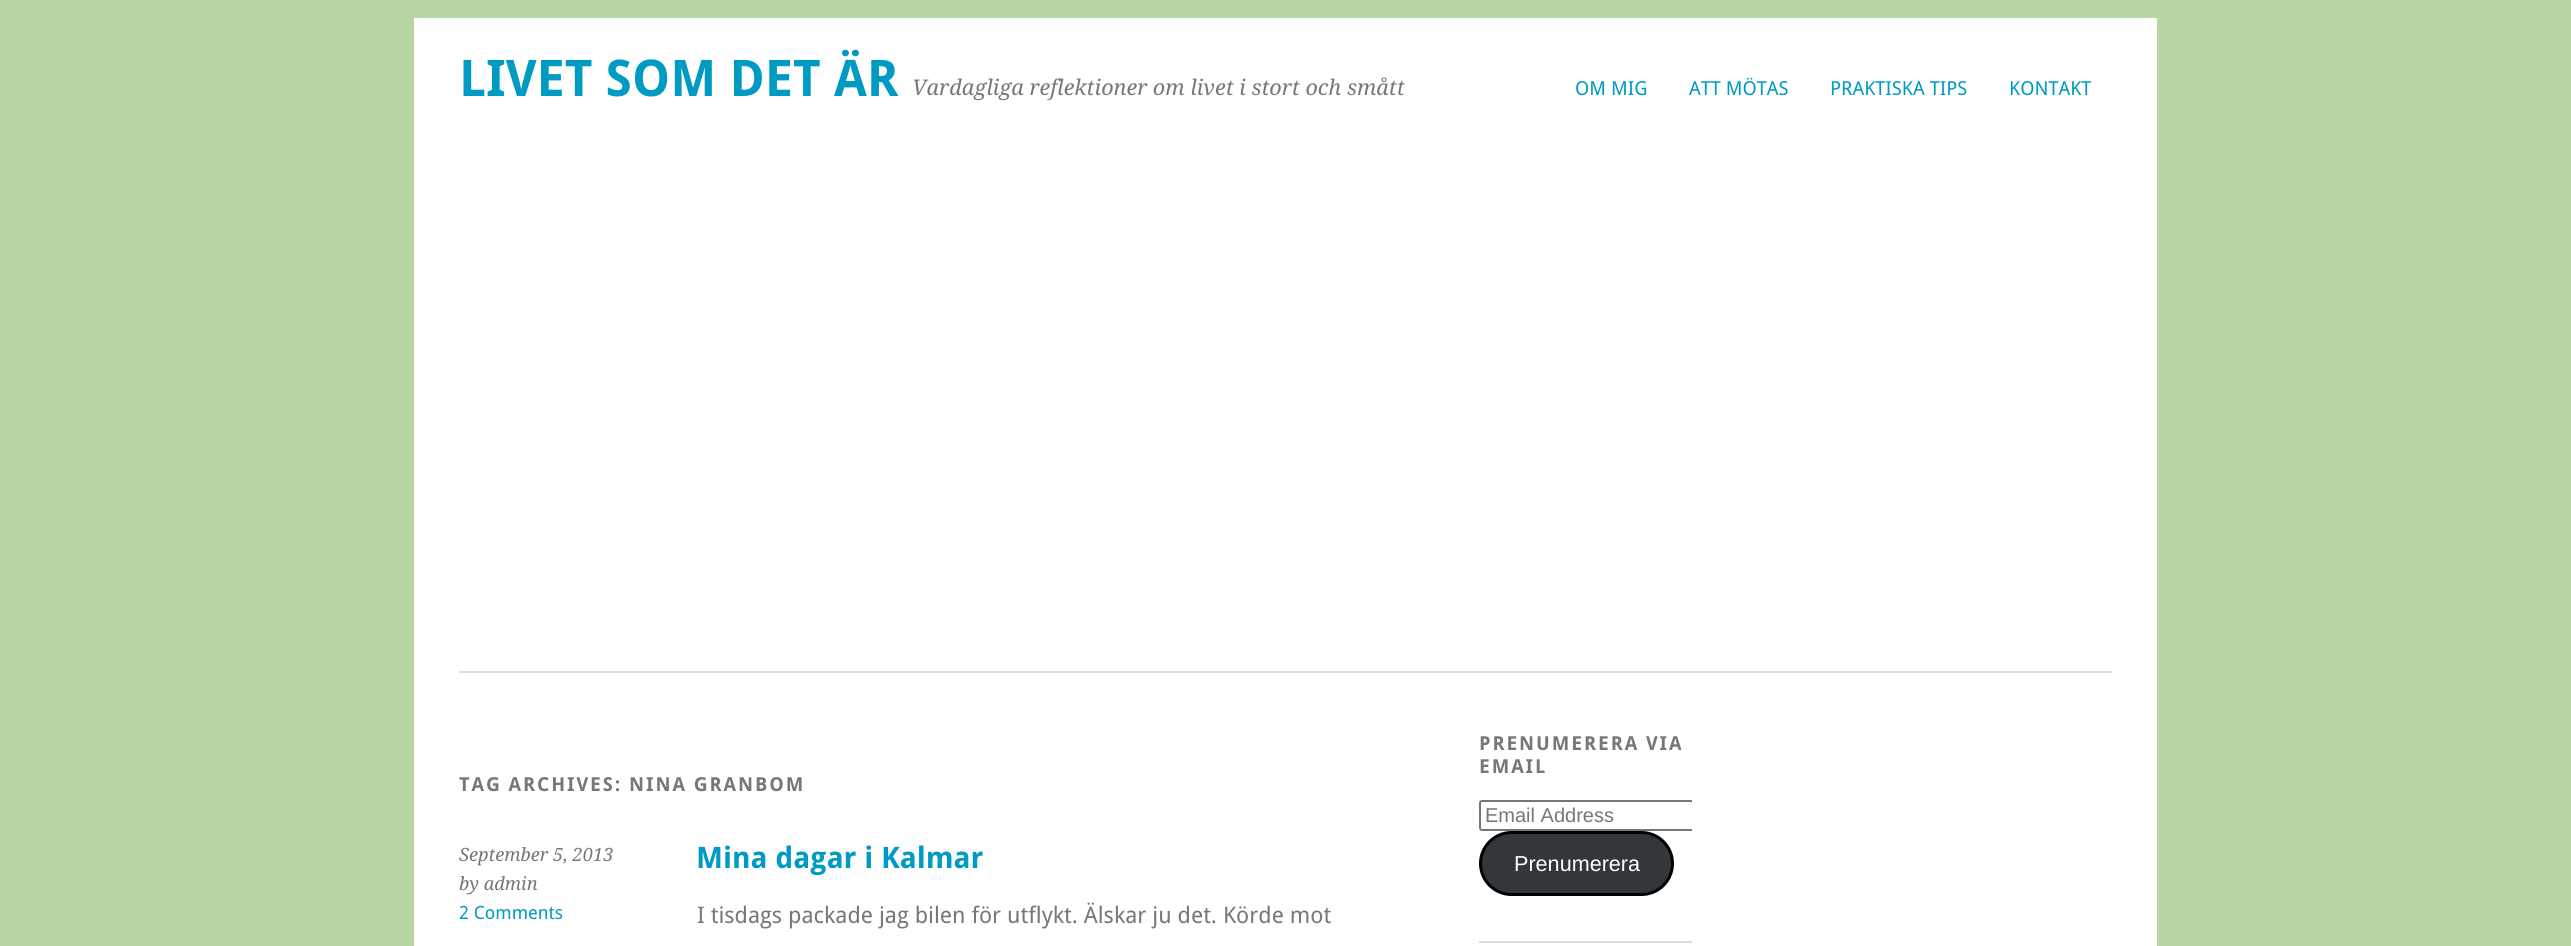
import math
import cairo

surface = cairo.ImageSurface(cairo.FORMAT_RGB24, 2571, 946)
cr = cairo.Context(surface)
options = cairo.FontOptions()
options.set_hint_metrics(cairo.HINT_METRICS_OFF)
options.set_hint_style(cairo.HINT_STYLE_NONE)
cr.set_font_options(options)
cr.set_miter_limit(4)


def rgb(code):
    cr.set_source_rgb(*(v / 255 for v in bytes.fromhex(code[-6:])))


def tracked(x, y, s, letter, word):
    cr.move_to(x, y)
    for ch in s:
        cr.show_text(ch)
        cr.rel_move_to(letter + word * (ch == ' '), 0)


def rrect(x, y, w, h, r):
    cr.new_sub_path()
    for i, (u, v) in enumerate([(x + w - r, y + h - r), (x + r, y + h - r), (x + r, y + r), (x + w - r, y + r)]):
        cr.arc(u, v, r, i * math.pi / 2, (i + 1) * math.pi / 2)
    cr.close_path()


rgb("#b8d6a4")
cr.paint()
for x, y, w, h, color in [
    (414, 18, 1743, 928, "#ffffff"),
    (459, 671, 1653, 2, "#dddddd"),
    (1479, 941, 213, 2, "#dddddd"),
]:
    rgb(color)
    cr.rectangle(x, y, w, h)
    cr.fill()
cr.save()
cr.rectangle(459, 732, 1233, 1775)
cr.clip()
rrect(1480, 801, 213, 29, 2)
rgb("#767676")
cr.stroke()
cr.restore()
rgb("#32373c")
rrect(1480.5, 832.5, 192, 62, 31)
cr.fill_preserve()
rgb("#000000")
cr.set_line_width(3)
cr.stroke()
cr.select_font_face("Droid Sans", cairo.FONT_SLANT_NORMAL, cairo.FONT_WEIGHT_BOLD)
cr.set_font_size(50.5)
rgb("#009bc2")
cr.move_to(459, 96)
cr.show_text("LIVET SOM DET ÄR")
cr.select_font_face("Droid Serif", cairo.FONT_SLANT_ITALIC)
cr.set_font_size(21.6)
rgb("#777777")
cr.move_to(912, 95)
cr.show_text("Vardagliga reflektioner om livet i stort och smått")
cr.select_font_face("Droid Sans")
cr.set_font_size(19.25)
rgb("#009bc2")
for x, y, s in [
    (1575, 95, "OM MIG"),
    (1689, 95, "ATT MÖTAS"),
    (1830, 95, "PRAKTISKA TIPS"),
    (2009, 95, "KONTAKT"),
]:
    cr.move_to(x, y)
    cr.show_text(s)
cr.select_font_face("Droid Sans", cairo.FONT_SLANT_NORMAL, cairo.FONT_WEIGHT_BOLD)
rgb("#777777")
tracked(459, 791, "TAG ARCHIVES: NINA GRANBOM", 1.9, 0)
cr.select_font_face("Droid Serif", cairo.FONT_SLANT_ITALIC)
cr.set_font_size(18.25)
cr.move_to(459, 861)
cr.show_text("September 5, 2013")
cr.move_to(459, 890)
cr.show_text("by admin")
cr.select_font_face("Droid Sans")
rgb("#009bc2")
cr.move_to(459, 919)
cr.show_text("2 Comments")
cr.select_font_face("Droid Sans", cairo.FONT_SLANT_NORMAL, cairo.FONT_WEIGHT_BOLD)
cr.set_font_size(29.6)
cr.move_to(696, 868)
cr.show_text("Mina dagar i Kalmar")
cr.select_font_face("Droid Sans")
cr.set_font_size(22.8)
rgb("#777777")
cr.move_to(697, 923)
cr.show_text("I tisdags packade jag bilen för utflykt. Älskar ju det. Körde mot")
cr.select_font_face("Droid Sans", cairo.FONT_SLANT_NORMAL, cairo.FONT_WEIGHT_BOLD)
cr.set_font_size(19.25)
tracked(1479, 750, "PRENUMERERA VIA", 1.9, 0)
tracked(1479, 773, "EMAIL", 1.9, 0)
cr.select_font_face("Liberation Sans")
cr.set_font_size(20)
cr.move_to(1485, 822)
cr.show_text("Email Address")
cr.set_font_size(21.6)
rgb("#ffffff")
cr.move_to(1514, 871)
cr.show_text("Prenumerera")
surface.write_to_png("page.png")
